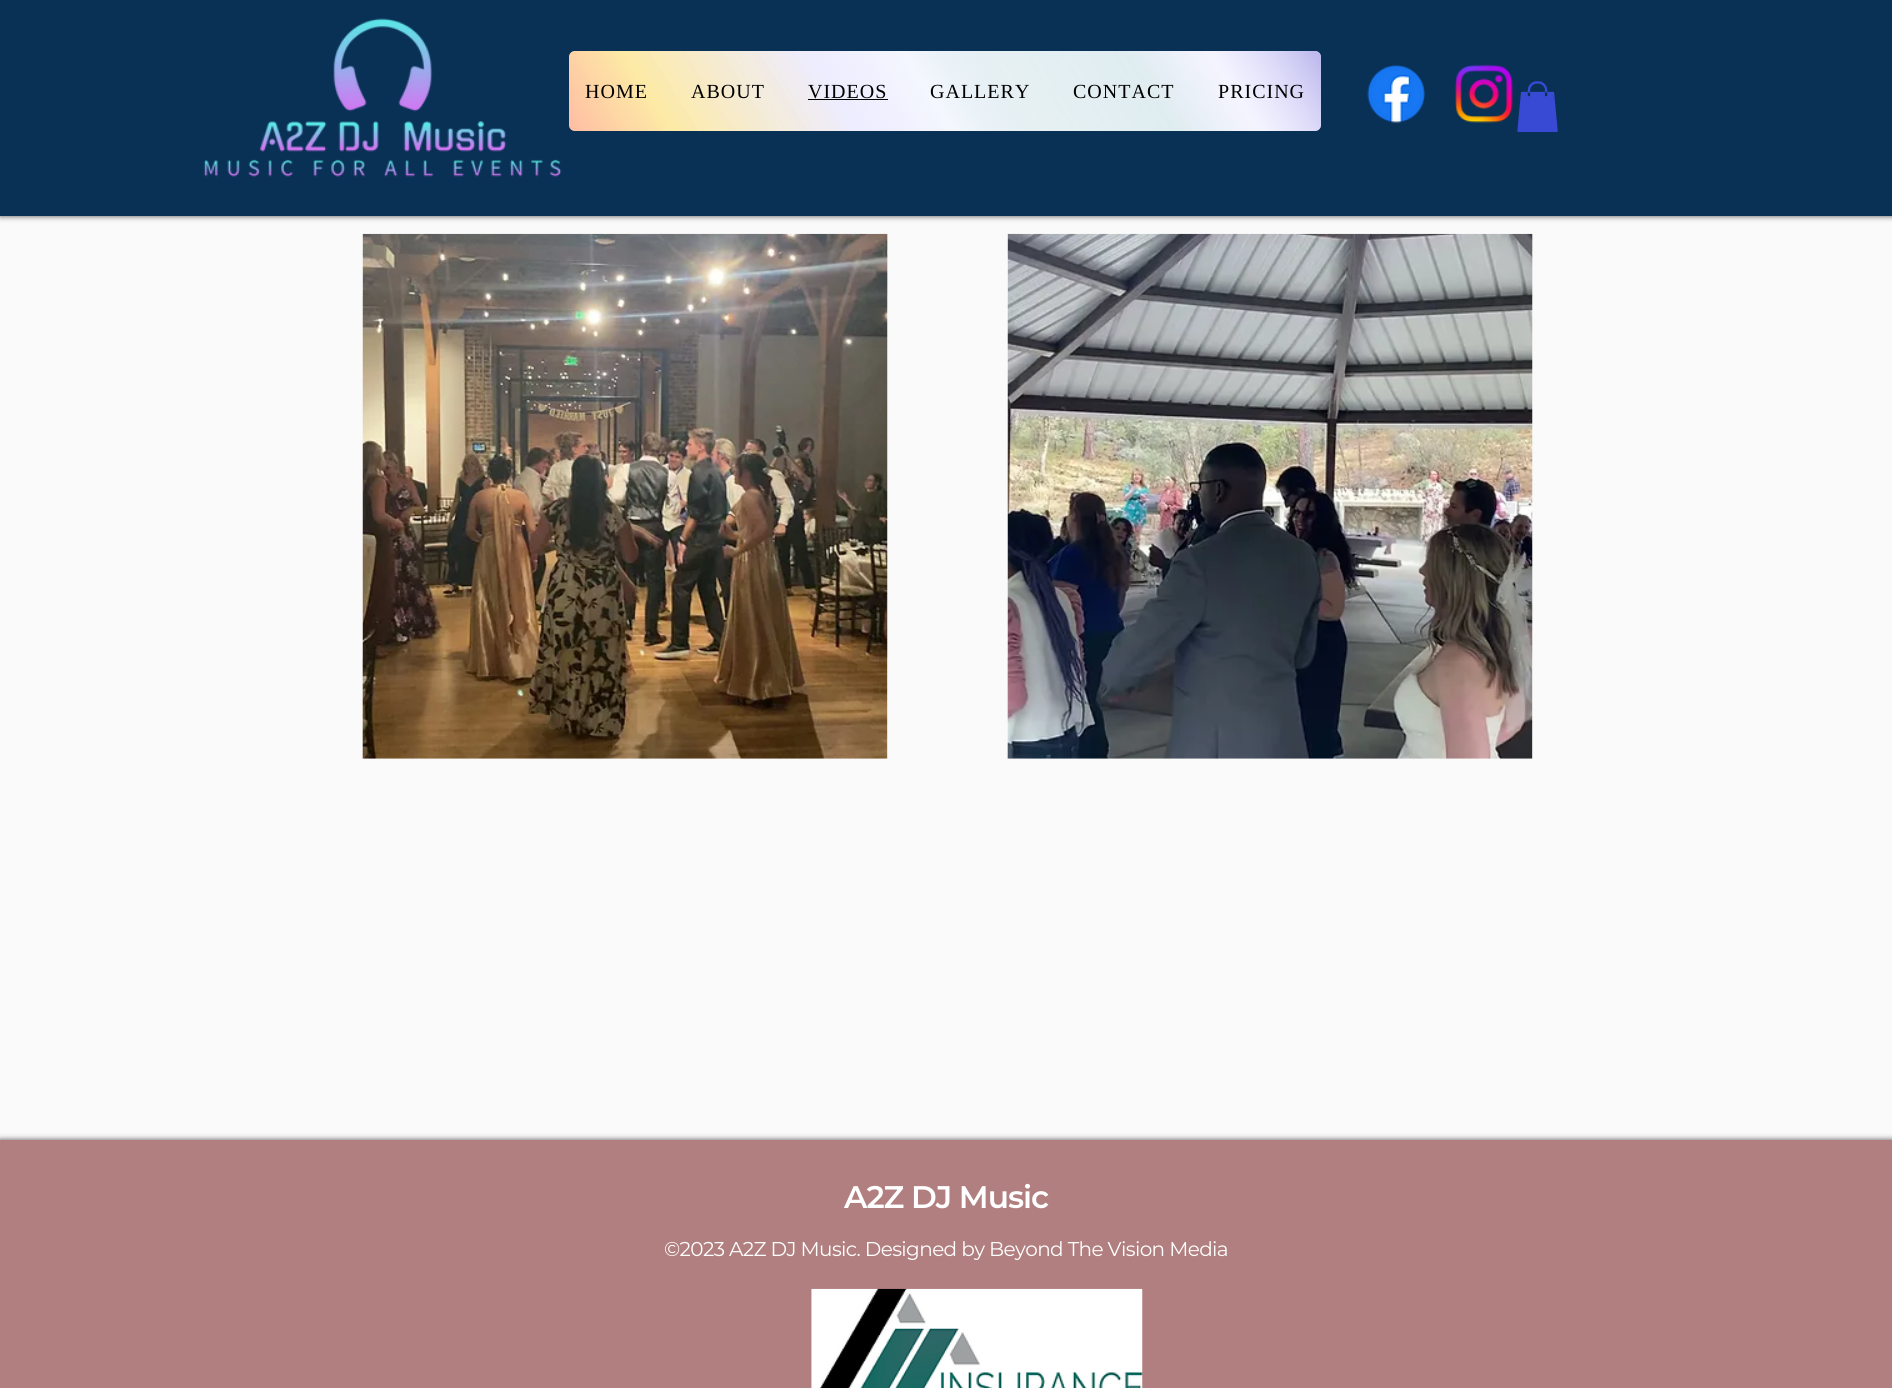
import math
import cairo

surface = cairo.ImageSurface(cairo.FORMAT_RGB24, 1892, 1388)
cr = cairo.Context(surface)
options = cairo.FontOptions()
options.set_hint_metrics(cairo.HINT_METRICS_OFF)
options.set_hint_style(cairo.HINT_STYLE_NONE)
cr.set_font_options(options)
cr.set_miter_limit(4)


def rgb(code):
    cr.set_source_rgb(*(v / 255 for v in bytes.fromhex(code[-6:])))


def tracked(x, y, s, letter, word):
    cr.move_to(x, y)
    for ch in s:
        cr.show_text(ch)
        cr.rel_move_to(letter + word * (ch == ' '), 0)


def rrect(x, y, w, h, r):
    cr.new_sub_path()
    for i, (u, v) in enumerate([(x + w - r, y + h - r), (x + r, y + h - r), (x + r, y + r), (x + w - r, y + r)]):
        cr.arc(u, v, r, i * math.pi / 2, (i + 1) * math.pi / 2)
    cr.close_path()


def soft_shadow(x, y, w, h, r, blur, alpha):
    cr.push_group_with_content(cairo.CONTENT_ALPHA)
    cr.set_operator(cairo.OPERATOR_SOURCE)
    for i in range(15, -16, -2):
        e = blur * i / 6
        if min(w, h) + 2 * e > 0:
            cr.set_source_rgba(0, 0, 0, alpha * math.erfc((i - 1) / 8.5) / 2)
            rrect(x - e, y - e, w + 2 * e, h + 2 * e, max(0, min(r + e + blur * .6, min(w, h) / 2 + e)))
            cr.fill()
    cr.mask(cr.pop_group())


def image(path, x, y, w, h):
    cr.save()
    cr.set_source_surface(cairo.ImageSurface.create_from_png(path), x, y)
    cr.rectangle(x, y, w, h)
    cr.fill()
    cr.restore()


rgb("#fafafa")
cr.paint()
rgb("#000000")
soft_shadow(0, 0, 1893, 216, 0, 3, 0.7)
rgb("#093055")
cr.rectangle(0, 0, 1892, 216)
cr.fill()
image("img/1.png", 203, 18, 359, 159)
rgb("#ffffff")
rrect(569, 51, 752, 80, 6)
cr.fill()
gradient = cairo.LinearGradient(656, 272, 1234, -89)
gradient.add_color_stop_rgba(0, 1, 0.271, 0, 0.36)
gradient.add_color_stop_rgba(0.13, 0.976, 0.765, 0, 0.35)
gradient.add_color_stop_rgba(0.36, 0.792, 0.78, 1, 0.33)
gradient.add_color_stop_rgba(0.48, 0.894, 0.922, 0.988, 0.4)
gradient.add_color_stop_rgba(0.59, 0.557, 0.741, 0.792, 0.22)
gradient.add_color_stop_rgba(0.76, 0.557, 0.741, 0.792, 0.28)
gradient.add_color_stop_rgba(0.86, 0.792, 0.78, 1, 0.2)
gradient.add_color_stop_rgba(0.99, 0.557, 0.533, 0.882, 0.57)
cr.set_source(gradient)
rrect(569, 51, 752, 80, 6)
cr.fill()
rgb("#000000")
cr.rectangle(808, 99, 80, 1)
cr.fill()
image("img/2.png", 1367, 65, 59, 58)
image("img/3.png", 1455, 64, 58, 59)
image("img/4.png", 1517, 81, 41, 51)
image("img/5.png", 362, 233, 526, 526)
image("img/6.png", 1007, 233, 526, 526)
rgb("#000000")
soft_shadow(0, 1140, 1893, 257, 0, 3, 0.7)
rgb("#b17f7f")
cr.rectangle(0, 1140, 1892, 248)
cr.fill()
image("img/7.png", 811, 1288, 332, 100)
cr.select_font_face("Liberation Serif")
cr.set_font_size(20)
rgb("#000000")
for x, y, s in [
    (585, 98, "HOME"),
    (691, 98, "ABOUT"),
    (808, 98, "VIDEOS"),
    (930, 98, "GALLERY"),
    (1073, 98, "CONTACT"),
    (1218, 98, "PRICING"),
]:
    tracked(x, y, s, 1, 0)
cr.select_font_face("Montserrat SemiBold")
cr.set_font_size(31.25)
rgb("#ffffff")
tracked(844, 1208, "A2Z DJ Music", -1, 0)
cr.select_font_face("Montserrat")
cr.set_font_size(20)
tracked(664, 1256, "©2023 A2Z DJ Music. Designed by Beyond The Vision Media", -0.6, 0)
surface.write_to_png("page.png")
